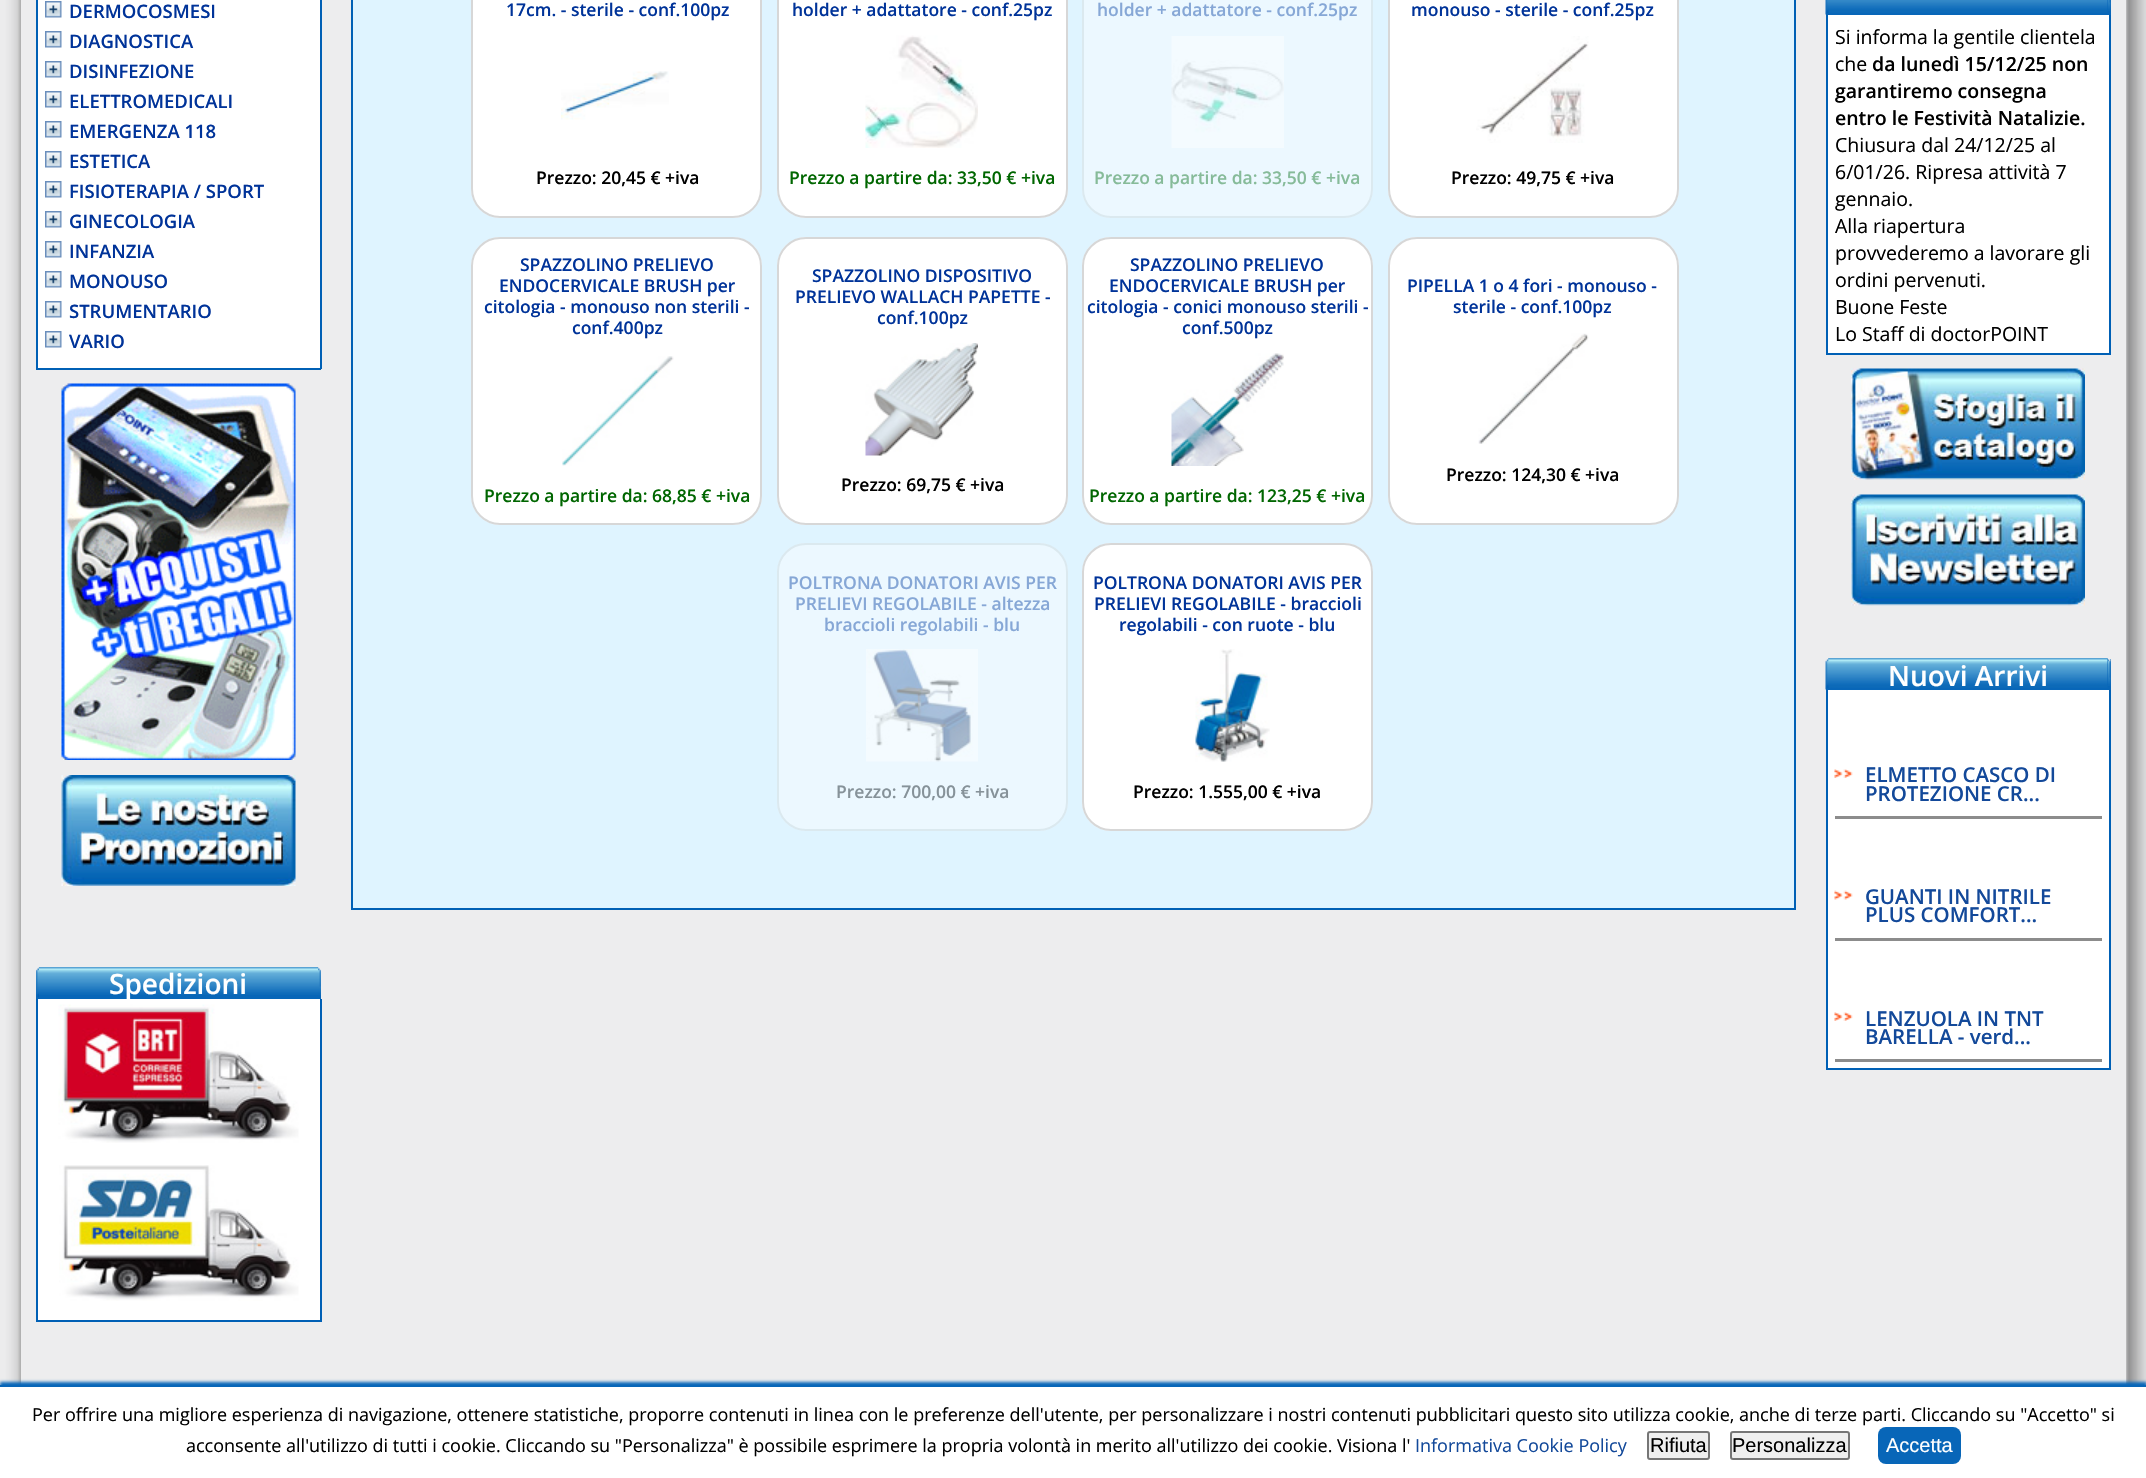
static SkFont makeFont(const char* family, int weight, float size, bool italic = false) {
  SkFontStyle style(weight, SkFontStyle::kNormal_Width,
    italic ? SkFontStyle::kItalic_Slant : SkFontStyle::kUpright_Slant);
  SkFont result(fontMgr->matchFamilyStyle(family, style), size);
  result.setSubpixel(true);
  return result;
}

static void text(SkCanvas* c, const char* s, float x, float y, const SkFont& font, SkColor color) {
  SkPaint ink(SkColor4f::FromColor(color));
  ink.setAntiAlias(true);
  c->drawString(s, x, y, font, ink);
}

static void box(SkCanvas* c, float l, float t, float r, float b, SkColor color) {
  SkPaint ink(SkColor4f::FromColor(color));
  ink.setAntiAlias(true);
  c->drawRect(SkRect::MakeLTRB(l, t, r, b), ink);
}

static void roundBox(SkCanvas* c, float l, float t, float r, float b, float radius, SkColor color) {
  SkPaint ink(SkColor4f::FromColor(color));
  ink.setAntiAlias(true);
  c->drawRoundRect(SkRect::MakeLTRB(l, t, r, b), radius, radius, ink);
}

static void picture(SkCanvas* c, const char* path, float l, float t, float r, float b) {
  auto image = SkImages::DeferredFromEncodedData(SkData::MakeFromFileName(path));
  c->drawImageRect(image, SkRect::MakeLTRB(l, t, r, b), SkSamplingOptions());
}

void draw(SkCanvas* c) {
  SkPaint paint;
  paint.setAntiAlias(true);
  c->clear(0xffffffff);
  picture(c, "img_01.png", 0, 0, 21, 1385);
  picture(c, "img_02.png", 2126, 0, 2146, 1385);
  box(c, 21, 0, 2126, 1385, 0xffededee);
  box(c, 38, 0, 320, 362, 0xffffffff);
  box(c, 320, 0, 322, 362, 0xff0060b5);
  box(c, 36, 0, 38, 362, 0xff0060b5);
  picture(c, "img_03.png", 45, 1, 62, 18);
  SkFont face1 = makeFont("Open Sans", 600, 18.5f);
  text(c, "DERMOCOSMESI", 69, 18, face1, 0xff003399);
  picture(c, "img_03.png", 45, 31, 62, 48);
  text(c, "DIAGNOSTICA", 69, 48, face1, 0xff003399);
  picture(c, "img_03.png", 45, 61, 62, 78);
  text(c, "DISINFEZIONE", 69, 78, face1, 0xff003399);
  picture(c, "img_03.png", 45, 91, 62, 108);
  text(c, "ELETTROMEDICALI", 69, 108, face1, 0xff003399);
  picture(c, "img_03.png", 45, 121, 62, 138);
  text(c, "EMERGENZA 118", 69, 138, face1, 0xff003399);
  picture(c, "img_03.png", 45, 151, 62, 168);
  text(c, "ESTETICA", 69, 168, face1, 0xff003399);
  picture(c, "img_03.png", 45, 181, 62, 198);
  text(c, "FISIOTERAPIA / SPORT", 69, 198, face1, 0xff003399);
  picture(c, "img_03.png", 45, 211, 62, 228);
  text(c, "GINECOLOGIA", 69, 228, face1, 0xff003399);
  picture(c, "img_03.png", 45, 241, 62, 258);
  text(c, "INFANZIA", 69, 258, face1, 0xff003399);
  picture(c, "img_03.png", 45, 271, 62, 288);
  text(c, "MONOUSO", 69, 288, face1, 0xff003399);
  picture(c, "img_03.png", 45, 301, 62, 318);
  text(c, "STRUMENTARIO", 69, 318, face1, 0xff003399);
  picture(c, "img_03.png", 45, 331, 62, 348);
  text(c, "VARIO", 69, 348, face1, 0xff003399);
  box(c, 36, 362, 321, 368, 0xffffffff);
  box(c, 320, 362, 322, 369, 0xff0060b5);
  box(c, 36, 368, 321, 370, 0xff0060b5);
  box(c, 36, 362, 38, 369, 0xff0060b5);
  picture(c, "img_04.png", 61, 383, 296, 760);
  picture(c, "img_05.png", 61, 775, 296, 886);
  box(c, 36, 997, 39, 999, 0xff0866b8);
  picture(c, "img_06.png", 36, 967, 39, 997);
  box(c, 39, 995, 321, 999, 0xff0866b8);
  picture(c, "img_07.png", 318, 967, 321, 995);
  picture(c, "img_08.png", 39, 967, 318, 995);
  box(c, 38, 999, 320, 1314, 0xffffffff);
  SkFont face2 = makeFont("Open Sans", 600, 28);
  text(c, "Spedizioni", 109, 994, face2, 0xffffffff);
  picture(c, "img_09.png", 58, 1004, 299, 1143);
  box(c, 320, 999, 322, 1314, 0xff0060b5);
  box(c, 36, 999, 38, 1314, 0xff0060b5);
  picture(c, "img_10.png", 59, 1165, 299, 1301);
  box(c, 36, 1314, 321, 1320, 0xffffffff);
  box(c, 320, 1314, 322, 1322, 0xff0060b5);
  box(c, 36, 1320, 321, 1322, 0xff0060b5);
  box(c, 36, 1314, 38, 1322, 0xff0060b5);
  box(c, 353, 0, 1794, 908, 0xffdff4ff);
  box(c, 1794, 0, 1796, 909, 0xff0060b5);
  box(c, 351, 0, 353, 893, 0xff0060b5);
  roundBox(c, 471, -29, 762, 218, 29, 0xffffffff);
  paint.setStyle(SkPaint::kStroke_Style);
  paint.setStrokeWidth(2);
  paint.setColor(0xc9cccccc);
  c->drawRoundRect(SkRect::MakeLTRB(472, -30, 761, 217), 28, 28, paint);
  SkFont face3 = makeFont("Open Sans", 600, 17.5f);
  text(c, "17cm. - sterile - conf.100pz", 506, 16, face3, 0xff003399);
  picture(c, "img_11.png", 561, 71, 669, 120);
  text(c, "Prezzo: 20,45 € +iva", 536, 184, face3, 0xff000000);
  roundBox(c, 777, -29, 1068, 218, 29, 0xffffffff);
  c->drawRoundRect(SkRect::MakeLTRB(778, -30, 1067, 217), 28, 28, paint);
  text(c, "holder + adattatore - conf.25pz", 792, 16, face3, 0xff003399);
  picture(c, "img_12.png", 865, 35, 978, 148);
  text(c, "Prezzo a partire da: 33,50 € +iva", 789, 184, face3, 0xff006600);
  roundBox(c, 1082, -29, 1373, 218, 29, 0xffecf8ff);
  paint.setColor(0xc9d7e4eb);
  c->drawRoundRect(SkRect::MakeLTRB(1083, -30, 1372, 217), 28, 28, paint);
  text(c, "holder + adattatore - conf.25pz", 1097, 16, face3, 0xff86a7d6);
  picture(c, "img_13.png", 1171, 36, 1284, 148);
  text(c, "Prezzo a partire da: 33,50 € +iva", 1094, 184, face3, 0xff86bb99);
  roundBox(c, 1388, -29, 1679, 218, 29, 0xffffffff);
  paint.setColor(0xc9cccccc);
  c->drawRoundRect(SkRect::MakeLTRB(1389, -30, 1678, 217), 28, 28, paint);
  text(c, "monouso - sterile - conf.25pz", 1411, 16, face3, 0xff003399);
  picture(c, "img_14.png", 1476, 36, 1589, 143);
  text(c, "Prezzo: 49,75 € +iva", 1451, 184, face3, 0xff000000);
  roundBox(c, 471, 237, 762, 525, 29, 0xffffffff);
  c->drawRoundRect(SkRect::MakeLTRB(472, 238, 761, 524), 28, 28, paint);
  text(c, "SPAZZOLINO PRELIEVO", 520, 271, face3, 0xff003399);
  text(c, "ENDOCERVICALE BRUSH per", 499, 292, face3, 0xff003399);
  text(c, "citologia - monouso non sterili -", 484, 313, face3, 0xff003399);
  text(c, "conf.400pz", 572, 334, face3, 0xff003399);
  picture(c, "img_15.png", 562, 356, 674, 466);
  text(c, "Prezzo a partire da: 68,85 € +iva", 484, 502, face3, 0xff006600);
  roundBox(c, 777, 237, 1068, 525, 29, 0xffffffff);
  c->drawRoundRect(SkRect::MakeLTRB(778, 238, 1067, 524), 28, 28, paint);
  text(c, "SPAZZOLINO DISPOSITIVO", 812, 282, face3, 0xff003399);
  text(c, "PRELIEVO WALLACH PAPETTE -", 795, 303, face3, 0xff003399);
  text(c, "conf.100pz", 877, 324, face3, 0xff003399);
  picture(c, "img_16.png", 865, 343, 978, 456);
  text(c, "Prezzo: 69,75 € +iva", 841, 491, face3, 0xff000000);
  roundBox(c, 1082, 237, 1373, 525, 29, 0xffffffff);
  c->drawRoundRect(SkRect::MakeLTRB(1083, 238, 1372, 524), 28, 28, paint);
  text(c, "SPAZZOLINO PRELIEVO", 1130, 271, face3, 0xff003399);
  text(c, "ENDOCERVICALE BRUSH per", 1109, 292, face3, 0xff003399);
  text(c, "citologia - conici monouso sterili -", 1087, 313, face3, 0xff003399);
  text(c, "conf.500pz", 1182, 334, face3, 0xff003399);
  picture(c, "img_17.png", 1171, 353, 1284, 466);
  text(c, "Prezzo a partire da: 123,25 € +iva", 1089, 502, face3, 0xff006600);
  roundBox(c, 1388, 237, 1679, 525, 29, 0xffffffff);
  c->drawRoundRect(SkRect::MakeLTRB(1389, 238, 1678, 524), 28, 28, paint);
  text(c, "PIPELLA 1 o 4 fori - monouso -", 1407, 292, face3, 0xff003399);
  text(c, "sterile - conf.100pz", 1453, 313, face3, 0xff003399);
  picture(c, "img_18.png", 1478, 333, 1589, 444);
  text(c, "Prezzo: 124,30 € +iva", 1446, 481, face3, 0xff000000);
  roundBox(c, 777, 543, 1068, 831, 29, 0xffecf8ff);
  paint.setColor(0xc9d7e4eb);
  c->drawRoundRect(SkRect::MakeLTRB(778, 544, 1067, 830), 28, 28, paint);
  text(c, "POLTRONA DONATORI AVIS PER", 788, 589, face3, 0xff86a7d6);
  text(c, "PRELIEVI REGOLABILE - altezza", 795, 610, face3, 0xff86a7d6);
  text(c, "braccioli regolabili - blu", 824, 631, face3, 0xff86a7d6);
  picture(c, "img_19.png", 866, 649, 978, 762);
  text(c, "Prezzo: 700,00 € +iva", 836, 798, face3, 0xff869299);
  roundBox(c, 1082, 543, 1373, 831, 29, 0xffffffff);
  paint.setColor(0xc9cccccc);
  c->drawRoundRect(SkRect::MakeLTRB(1083, 544, 1372, 830), 28, 28, paint);
  text(c, "POLTRONA DONATORI AVIS PER", 1093, 589, face3, 0xff003399);
  text(c, "PRELIEVI REGOLABILE - braccioli", 1094, 610, face3, 0xff003399);
  text(c, "regolabili - con ruote - blu", 1119, 631, face3, 0xff003399);
  picture(c, "img_20.png", 1195, 649, 1270, 762);
  text(c, "Prezzo: 1.555,00 € +iva", 1133, 798, face3, 0xff000000);
  box(c, 351, 908, 1796, 910, 0xff0060b5);
  box(c, 351, 893, 353, 909, 0xff0060b5);
  box(c, 1826, 14, 1829, 15, 0xff0866b8);
  picture(c, "img_21.png", 1825, 0, 1829, 15);
  box(c, 1829, 0, 2111, 15, 0xff0866b8);
  picture(c, "img_22.png", 2108, 0, 2111, 11);
  picture(c, "img_23.png", 1828, 0, 2108, 13);
  box(c, 1828, 15, 2109, 347, 0xffffffff);
  box(c, 2109, 15, 2111, 347, 0xff0060b5);
  box(c, 1826, 15, 1828, 347, 0xff0060b5);
  SkFont face4 = makeFont("Open Sans", 400, 19.5f);
  text(c, "Si informa la gentile clientela", 1835, 44, face4, 0xff000000);
  text(c, "che", 1835, 71, face4, 0xff000000);
  SkFont face5 = makeFont("Open Sans", 600, 19.5f);
  text(c, "da lunedì 15/12/25 non", 1872, 71, face5, 0xff000000);
  text(c, "garantiremo consegna", 1835, 98, face5, 0xff000000);
  text(c, "entro le Festività Natalizie.", 1835, 125, face5, 0xff000000);
  text(c, "Chiusura dal 24/12/25 al", 1835, 152, face4, 0xff000000);
  text(c, "6/01/26. Ripresa attività 7", 1835, 179, face4, 0xff000000);
  text(c, "gennaio.", 1835, 206, face4, 0xff000000);
  text(c, "Alla riapertura", 1835, 233, face4, 0xff000000);
  text(c, "provvederemo a lavorare gli", 1835, 260, face4, 0xff000000);
  text(c, "ordini pervenuti.", 1835, 287, face4, 0xff000000);
  text(c, "Buone Feste", 1835, 314, face4, 0xff000000);
  text(c, "Lo Staff di doctorPOINT", 1835, 341, face4, 0xff000000);
  box(c, 1826, 347, 2111, 353, 0xffffffff);
  box(c, 2109, 347, 2111, 354, 0xff0060b5);
  box(c, 1826, 353, 2111, 355, 0xff0060b5);
  box(c, 1826, 347, 1828, 354, 0xff0060b5);
  picture(c, "img_24.png", 1851, 368, 2085, 480);
  picture(c, "img_25.png", 1851, 494, 2085, 606);
  box(c, 1826, 689, 1829, 690, 0xff0866b8);
  picture(c, "img_26.png", 1825, 658, 1829, 690);
  box(c, 2108, 659, 2111, 690, 0xff0866b8);
  picture(c, "img_27.png", 2107, 658, 2111, 686);
  box(c, 1829, 659, 2108, 690, 0xff0866b8);
  picture(c, "img_28.png", 1828, 658, 2108, 688);
  text(c, "Nuovi Arrivi", 1888, 686, face2, 0xffffffff);
  box(c, 1828, 690, 2109, 1062, 0xffffffff);
  box(c, 2109, 690, 2111, 1062, 0xff0060b5);
  box(c, 1826, 690, 1828, 1062, 0xff0060b5);
  box(c, 1835, 816, 2102, 819, 0xff8c8c8c);
  picture(c, "img_29.png", 1834, 769, 1853, 778);
  SkFont face6 = makeFont("Open Sans", 600, 20.5f);
  text(c, "ELMETTO CASCO DI", 1865, 782, face6, 0xff13499a);
  text(c, "PROTEZIONE CR...", 1865, 801, face6, 0xff13499a);
  box(c, 1835, 938, 2102, 941, 0xff8c8c8c);
  picture(c, "img_30.png", 1834, 890, 1853, 900);
  text(c, "GUANTI IN NITRILE", 1865, 904, face6, 0xff13499a);
  text(c, "PLUS COMFORT...", 1865, 922, face6, 0xff13499a);
  box(c, 1835, 1059, 2102, 1062, 0xff8c8c8c);
  picture(c, "img_29.png", 1834, 1012, 1853, 1021);
  text(c, "LENZUOLA IN TNT", 1865, 1026, face6, 0xff13499a);
  text(c, "BARELLA - verd...", 1865, 1044, face6, 0xff13499a);
  box(c, 1826, 1062, 2111, 1068, 0xffffffff);
  box(c, 2109, 1062, 2111, 1070, 0xff0060b5);
  box(c, 1826, 1068, 2111, 1070, 0xff0060b5);
  box(c, 1826, 1062, 1828, 1070, 0xff0060b5);
  paint.setStyle(SkPaint::kFill_Style);
  paint.setColor(0xff0866b8);
  paint.setMaskFilter(SkMaskFilter::MakeBlur(kNormal_SkBlurStyle, 1.5f));
  c->drawRect(SkRect::MakeLTRB(0, 1382, 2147, 1476), paint);
  paint.setMaskFilter(nullptr);
  box(c, 0, 1387, 2146, 1478, 0xffffffff);
  box(c, 0, 1385, 2146, 1387, 0xff0866b8);
  SkFont face7 = makeFont("Open Sans", 400, 18);
  text(c, "Per offrire una migliore esperienza di navigazione, ottenere statistiche, proporre contenuti in linea con le preferenze dell'utente, per personalizzare i nostri contenuti pubblicitari questo sito utilizza cookie, anche di terze parti. Cliccando su \"Accetto\" si", 32, 1421, face7, 0xff000000);
  text(c, "acconsente all'utilizzo di tutti i cookie. Cliccando su \"Personalizza\" è possibile esprimere la propria volontà in merito all'utilizzo dei cookie. Visiona l'", 186, 1452, face7, 0xff000000);
  text(c, "Informativa Cookie Policy", 1415, 1452, face7, 0xff13499a);
  paint.setColor(0xffefefef);
  c->drawRoundRect(SkRect::MakeLTRB(1648, 1432, 1709, 1459), 2, 2, paint);
  paint.setStyle(SkPaint::kStroke_Style);
  paint.setColor(0xff767676);
  c->drawRoundRect(SkRect::MakeLTRB(1648, 1432, 1709, 1459), 2, 2, paint);
  SkFont face8 = makeFont("Liberation Sans", 400, 20);
  text(c, "Rifiuta", 1650, 1452, face8, 0xff000000);
  paint.setStyle(SkPaint::kFill_Style);
  paint.setColor(0xffefefef);
  c->drawRoundRect(SkRect::MakeLTRB(1731, 1432, 1849, 1459), 2, 2, paint);
  paint.setStyle(SkPaint::kStroke_Style);
  paint.setColor(0xff767676);
  c->drawRoundRect(SkRect::MakeLTRB(1731, 1432, 1849, 1459), 2, 2, paint);
  text(c, "Personalizza", 1732, 1452, face8, 0xff000000);
  roundBox(c, 1878, 1427, 1961, 1464, 8, 0xff0866b8);
  text(c, "Accetta", 1886, 1452, face8, 0xffffffff);
}
